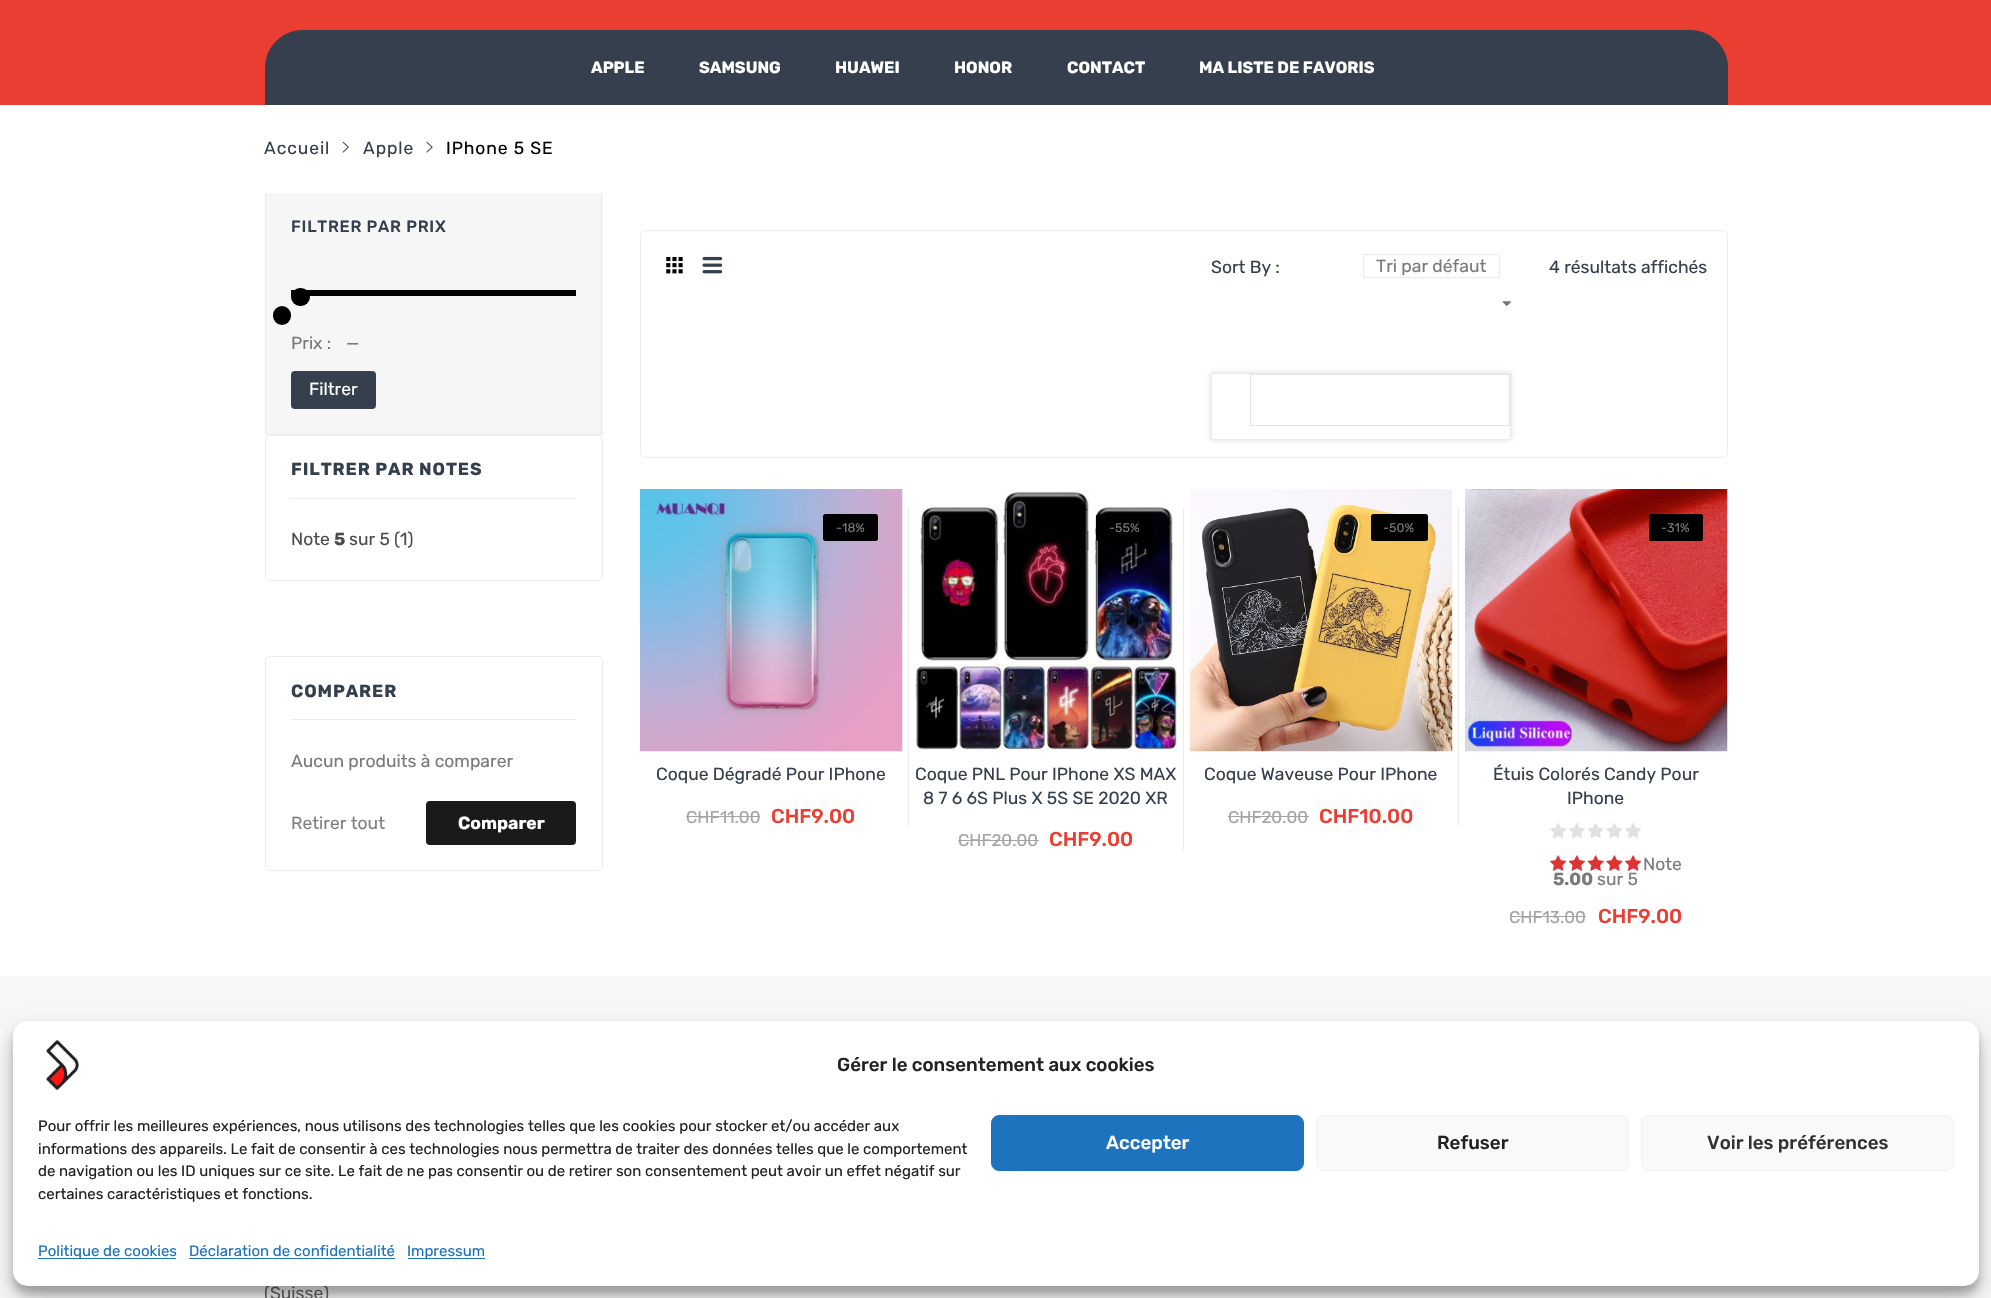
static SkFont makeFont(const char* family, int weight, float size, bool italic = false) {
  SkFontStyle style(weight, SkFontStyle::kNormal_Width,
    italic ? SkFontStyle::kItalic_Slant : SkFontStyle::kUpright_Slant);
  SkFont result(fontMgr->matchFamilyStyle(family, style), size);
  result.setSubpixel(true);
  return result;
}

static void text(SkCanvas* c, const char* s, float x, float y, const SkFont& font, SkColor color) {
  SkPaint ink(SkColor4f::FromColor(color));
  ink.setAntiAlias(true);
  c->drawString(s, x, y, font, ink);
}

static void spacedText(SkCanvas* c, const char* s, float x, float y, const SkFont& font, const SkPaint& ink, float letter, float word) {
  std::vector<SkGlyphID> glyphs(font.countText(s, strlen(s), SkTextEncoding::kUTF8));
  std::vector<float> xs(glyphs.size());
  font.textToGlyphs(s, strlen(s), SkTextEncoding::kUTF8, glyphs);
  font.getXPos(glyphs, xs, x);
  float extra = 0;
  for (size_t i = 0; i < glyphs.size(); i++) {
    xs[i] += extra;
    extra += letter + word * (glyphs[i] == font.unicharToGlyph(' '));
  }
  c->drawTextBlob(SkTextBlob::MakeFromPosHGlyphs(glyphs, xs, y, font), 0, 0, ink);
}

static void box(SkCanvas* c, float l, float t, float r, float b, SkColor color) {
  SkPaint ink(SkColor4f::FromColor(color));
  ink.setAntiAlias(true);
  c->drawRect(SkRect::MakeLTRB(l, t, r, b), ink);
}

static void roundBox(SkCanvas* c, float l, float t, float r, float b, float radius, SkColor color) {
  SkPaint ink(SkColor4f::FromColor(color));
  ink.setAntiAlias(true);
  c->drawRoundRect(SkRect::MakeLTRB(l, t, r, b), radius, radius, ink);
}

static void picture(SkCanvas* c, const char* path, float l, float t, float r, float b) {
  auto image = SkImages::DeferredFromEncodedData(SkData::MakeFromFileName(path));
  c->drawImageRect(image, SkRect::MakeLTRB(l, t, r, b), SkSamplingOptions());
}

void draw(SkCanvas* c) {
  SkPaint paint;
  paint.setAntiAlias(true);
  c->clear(0xffffffff);
  box(c, 0, 0, 1991, 105, 0xffeb3e32);
  paint.setColor(0xff363f4d);
  c->drawPath(SkPathBuilder().moveTo(302.5f, 30).lineTo(1690.5f, 30).cubicTo(1711, 30, 1728, 47, 1728, 67.5f).lineTo(1728, 105).lineTo(265, 105).lineTo(265, 67.5f).cubicTo(265, 47, 282, 30, 302.5f, 30).close().detach(), paint);
  SkFont face1 = makeFont("Rubik", 700, 16.25f);
  text(c, "APPLE", 591, 73, face1, 0xffffffff);
  text(c, "SAMSUNG", 699, 73, face1, 0xffffffff);
  text(c, "HUAWEI", 835, 73, face1, 0xffffffff);
  text(c, "HONOR", 954, 73, face1, 0xffffffff);
  text(c, "CONTACT", 1067, 73, face1, 0xffffffff);
  text(c, "MA LISTE DE FAVORIS", 1199, 73, face1, 0xffffffff);
  SkFont face2 = makeFont("Rubik", 400, 17.5f);
  spacedText(c, "Accueil", 264, 154, face2, paint, 0.9f, 0);
  picture(c, "img_01.png", 342, 141, 349, 153);
  spacedText(c, "Apple", 363, 154, face2, paint, 0.9f, 0);
  picture(c, "img_02.png", 426, 141, 433, 153);
  paint.setColor(0xff000000);
  spacedText(c, "IPhone 5 SE", 446, 154, face2, paint, 0.9f, 0);
  box(c, 266, 193, 603, 434, 0xfff6f6f6);
  box(c, 601, 193, 602, 435, 0xffebebeb);
  box(c, 265, 434, 603, 435, 0xffebebeb);
  box(c, 265, 193, 266, 435, 0xffebebeb);
  SkFont face3 = makeFont("Rubik", 500, 16.25f);
  paint.setColor(0xff363f4d);
  spacedText(c, "FILTRER PAR PRIX", 291, 232, face3, paint, 0.75f, 0);
  box(c, 291, 290, 576, 296, 0xff000000);
  roundBox(c, 291, 288, 310, 306, 9, 0xff000000);
  roundBox(c, 273, 306, 291, 325, 9, 0xff000000);
  text(c, "Prix :", 291, 349, face2, 0xff7a7a7a);
  text(c, "—", 346, 349, face2, 0xff7a7a7a);
  roundBox(c, 291, 371, 376, 409, 4, 0xff363f4d);
  text(c, "Filtrer", 309, 395, face2, 0xffffffff);
  paint.setStyle(SkPaint::kStroke_Style);
  paint.setStrokeWidth(1);
  paint.setColor(0xffebebeb);
  c->drawRoundRect(SkRect::MakeLTRB(265.5f, 435.5f, 602.5f, 580.5f), 4.5f, 4.5f, paint);
  box(c, 291, 498, 576, 499, 0xffebebeb);
  SkFont face4 = makeFont("Rubik", 700, 17.5f);
  paint.setStyle(SkPaint::kFill_Style);
  paint.setColor(0xff363f4d);
  spacedText(c, "FILTRER PAR NOTES", 291, 475, face4, paint, 0.9f, 0);
  text(c, "Note", 291, 545, face2, 0xff4c4c4c);
  text(c, "5", 334, 545, face4, 0xff4c4c4c);
  text(c, "sur 5 (1)", 349, 545, face2, 0xff4c4c4c);
  paint.setStyle(SkPaint::kStroke_Style);
  paint.setColor(0xffebebeb);
  c->drawRoundRect(SkRect::MakeLTRB(265.5f, 656.5f, 602.5f, 870.5f), 4.5f, 4.5f, paint);
  box(c, 291, 719, 576, 720, 0xffebebeb);
  paint.setStyle(SkPaint::kFill_Style);
  paint.setColor(0xff363f4d);
  spacedText(c, "COMPARER", 291, 697, face4, paint, 0.9f, 0);
  text(c, "Aucun produits à comparer", 291, 767, face2, 0xff7a7a7a);
  text(c, "Retirer tout", 291, 829, face2, 0xff808080);
  roundBox(c, 426, 801, 576, 845, 4, 0xff1a1a1a);
  text(c, "Comparer", 458, 829, face4, 0xffffffff);
  paint.setStyle(SkPaint::kStroke_Style);
  paint.setColor(0xffebebeb);
  c->drawRoundRect(SkRect::MakeLTRB(640.5f, 230.5f, 1727.5f, 457.5f), 4.5f, 4.5f, paint);
  picture(c, "img_03.png", 666, 256, 683, 274);
  picture(c, "img_04.png", 702, 256, 723, 274);
  text(c, "Sort By :", 1211, 273, face2, 0xff363f4d);
  c->drawRect(SkRect::MakeLTRB(1363.5f, 254.5f, 1499.5f, 277.5f), paint);
  text(c, "Tri par défaut", 1376, 272, face2, 0xff7a7a7a);
  picture(c, "img_05.png", 1502, 301, 1511, 306);
  c->save();
  c->clipPath(SkPathBuilder(SkPathFillType::kEvenOdd).moveTo(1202, 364).lineTo(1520, 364).lineTo(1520, 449).lineTo(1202, 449).close().moveTo(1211, 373).lineTo(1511, 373).lineTo(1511, 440).lineTo(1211, 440).close().detach(), true);
  paint.setStyle(SkPaint::kFill_Style);
  paint.setColor(0x24000000);
  paint.setMaskFilter(SkMaskFilter::MakeBlur(kNormal_SkBlurStyle, 2.5f));
  c->drawRect(SkRect::MakeLTRB(1211, 373, 1511, 440), paint);
  paint.setMaskFilter(nullptr);
  c->restore();
  paint.setStyle(SkPaint::kStroke_Style);
  paint.setColor(0xffebebeb);
  c->drawRect(SkRect::MakeLTRB(1211.5f, 373.5f, 1510.5f, 439.5f), paint);
  paint.setColor(0xffe5e5e5);
  c->drawRect(SkRect::MakeLTRB(1250.5f, 374.5f, 1509.5f, 425.5f), paint);
  text(c, "4 résultats affichés", 1549, 273, face2, 0xff363f4d);
  picture(c, "img_06.png", 640, 489, 903, 752);
  roundBox(c, 823, 514, 878, 541, 2.5f, 0xff000000);
  SkFont face5 = makeFont("Rubik", 400, 12.5f);
  text(c, "-18%", 836, 532, face5, 0xff7a7a7a);
  box(c, 908, 508, 909, 826, 0xffebebeb);
  text(c, "Coque Dégradé Pour IPhone", 656, 780, face2, 0xff363f4d);
  SkFont face6 = makeFont("Rubik", 400, 17);
  text(c, "CHF", 686, 823, face6, 0xffa4a4a4);
  box(c, 686, 816, 720, 817, 0xffa4a4a4);
  text(c, "11.00", 720, 823, face6, 0xffa4a4a4);
  box(c, 720, 816, 760, 817, 0xffa4a4a4);
  SkFont face7 = makeFont("Rubik", 500, 20);
  text(c, "CHF9.00", 771, 823, face7, 0xffeb3e32);
  picture(c, "img_07.png", 915, 490, 1178, 752);
  roundBox(c, 1096, 514, 1153, 541, 2.5f, 0xff000000);
  text(c, "-55%", 1109, 532, face5, 0xff7a7a7a);
  box(c, 1183, 508, 1184, 850, 0xffebebeb);
  text(c, "Coque PNL Pour IPhone XS MAX", 915, 780, face2, 0xff363f4d);
  text(c, "8 7 6 6S Plus X 5S SE 2020 XR", 923, 804, face2, 0xff363f4d);
  text(c, "CHF20.00", 958, 846, face6, 0xffa4a4a4);
  box(c, 958, 840, 1039, 841, 0xffa4a4a4);
  text(c, "CHF9.00", 1049, 846, face7, 0xffeb3e32);
  picture(c, "img_08.png", 1190, 489, 1453, 752);
  roundBox(c, 1371, 514, 1428, 541, 2.5f, 0xff000000);
  text(c, "-50%", 1383, 532, face5, 0xff7a7a7a);
  box(c, 1458, 508, 1459, 826, 0xffebebeb);
  text(c, "Coque Waveuse Pour IPhone", 1204, 780, face2, 0xff363f4d);
  text(c, "CHF20.00", 1228, 823, face6, 0xffa4a4a4);
  box(c, 1228, 816, 1309, 817, 0xffa4a4a4);
  text(c, "CHF10.00", 1319, 823, face7, 0xffeb3e32);
  picture(c, "img_09.png", 1465, 489, 1728, 752);
  roundBox(c, 1649, 514, 1703, 541, 2.5f, 0xff000000);
  text(c, "-31%", 1661, 532, face5, 0xff7a7a7a);
  text(c, "Étuis Colorés Candy Pour", 1493, 780, face2, 0xff363f4d);
  text(c, "IPhone", 1567, 804, face2, 0xff363f4d);
  picture(c, "img_10.png", 1550, 823, 1641, 839);
  picture(c, "img_11.png", 1550, 855, 1642, 871);
  text(c, "Note", 1643, 870, face2, 0xff7a7a7a);
  text(c, "5.00", 1553, 885, face4, 0xff7a7a7a);
  text(c, "sur 5", 1597, 885, face2, 0xff7a7a7a);
  text(c, "CHF13.00", 1509, 923, face6, 0xffa4a4a4);
  box(c, 1510, 916, 1586, 917, 0xffa4a4a4);
  text(c, "CHF9.00", 1598, 923, face7, 0xffeb3e32);
  box(c, 0, 976, 1991, 1298, 0xfff7f7f7);
  text(c, "(Suisse)", 264, 1299, face2, 0xff666666);
  paint.setStyle(SkPaint::kFill_Style);
  paint.setColor(0x3b000000);
  paint.setMaskFilter(SkMaskFilter::MakeBlur(kNormal_SkBlurStyle, 4));
  c->drawRoundRect(SkRect::MakeLTRB(13, 1029, 1979, 1294), 15, 15, paint);
  paint.setMaskFilter(nullptr);
  paint.setColor(0x30000000);
  paint.setMaskFilter(SkMaskFilter::MakeBlur(kNormal_SkBlurStyle, 12.5f));
  c->drawRoundRect(SkRect::MakeLTRB(13, 1034, 1979, 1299), 15, 15, paint);
  paint.setMaskFilter(nullptr);
  roundBox(c, 13, 1021, 1979, 1286, 15, 0xffffffff);
  picture(c, "img_12.png", 46, 1040, 79, 1090);
  SkFont face8 = makeFont("Rubik", 500, 18.75f);
  text(c, "Gérer le consentement aux cookies", 837, 1071, face8, 0xff222222);
  SkFont face9 = makeFont("Rubik", 400, 15);
  text(c, "Pour offrir les meilleures expériences, nous utilisons des technologies telles que les cookies pour stocker et/ou accéder aux", 38, 1131, face9, 0xff222222);
  text(c, "informations des appareils. Le fait de consentir à ces technologies nous permettra de traiter des données telles que le comportement", 38, 1154, face9, 0xff222222);
  text(c, "de navigation ou les ID uniques sur ce site. Le fait de ne pas consentir ou de retirer son consentement peut avoir un effet négatif sur", 38, 1176, face9, 0xff222222);
  text(c, "certaines caractéristiques et fonctions.", 38, 1199, face9, 0xff222222);
  paint.setColor(0xff1e73be);
  c->drawRoundRect(SkRect::MakeLTRB(991.5f, 1115.5f, 1303.5f, 1170.5f), 7.5f, 7.5f, paint);
  paint.setStyle(SkPaint::kStroke_Style);
  c->drawRoundRect(SkRect::MakeLTRB(991.5f, 1115.5f, 1303.5f, 1170.5f), 7.5f, 7.5f, paint);
  text(c, "Accepter", 1106, 1149, face8, 0xffffffff);
  paint.setStyle(SkPaint::kFill_Style);
  paint.setColor(0xfff9f9f9);
  c->drawRoundRect(SkRect::MakeLTRB(1316.5f, 1115.5f, 1628.5f, 1170.5f), 7.5f, 7.5f, paint);
  paint.setStyle(SkPaint::kStroke_Style);
  paint.setColor(0xfff2f2f2);
  c->drawRoundRect(SkRect::MakeLTRB(1316.5f, 1115.5f, 1628.5f, 1170.5f), 7.5f, 7.5f, paint);
  text(c, "Refuser", 1437, 1149, face8, 0xff222222);
  paint.setStyle(SkPaint::kFill_Style);
  paint.setColor(0xfff9f9f9);
  c->drawRoundRect(SkRect::MakeLTRB(1641.5f, 1115.5f, 1953.5f, 1170.5f), 7.5f, 7.5f, paint);
  paint.setStyle(SkPaint::kStroke_Style);
  paint.setColor(0xfff2f2f2);
  c->drawRoundRect(SkRect::MakeLTRB(1641.5f, 1115.5f, 1953.5f, 1170.5f), 7.5f, 7.5f, paint);
  text(c, "Voir les préférences", 1707, 1149, face8, 0xff333333);
  box(c, 38, 1258, 176, 1259, 0xff1e73be);
  text(c, "Politique de cookies", 38, 1256, face9, 0xff1e73be);
  text(c, "Déclaration de confidentialité", 189, 1256, face9, 0xff1e73be);
  box(c, 189, 1258, 395, 1259, 0xff1e73be);
  box(c, 408, 1258, 485, 1259, 0xff1e73be);
  text(c, "Impressum", 407, 1256, face9, 0xff1e73be);
}
